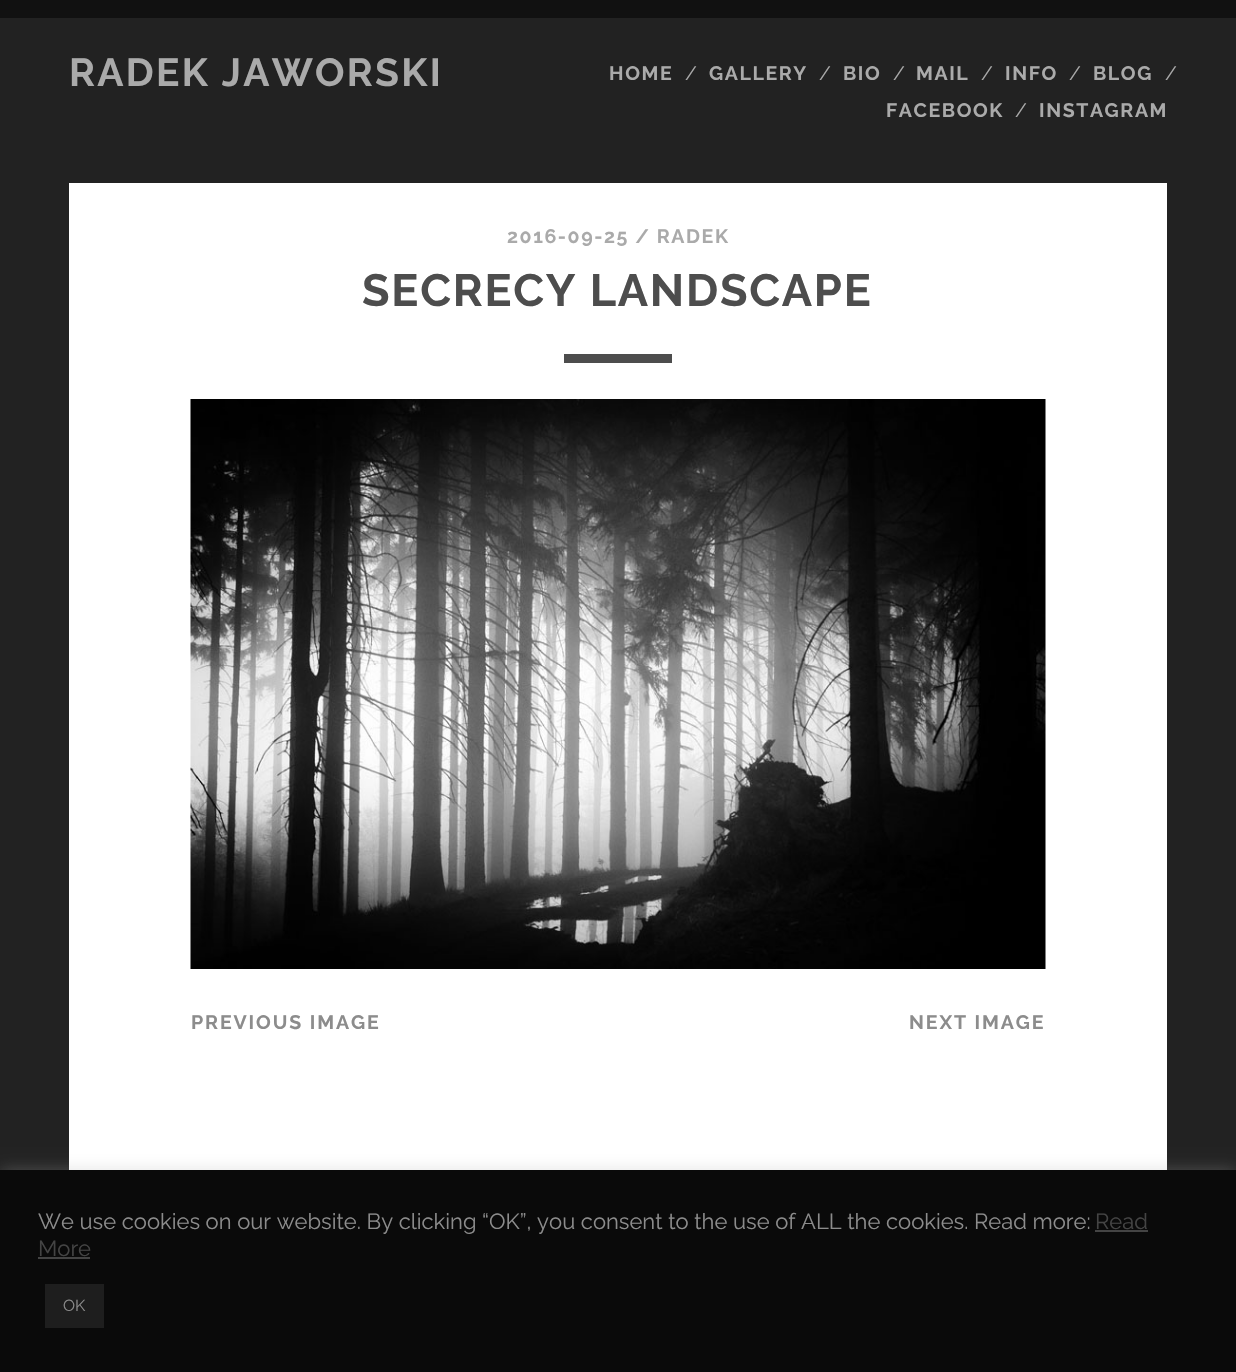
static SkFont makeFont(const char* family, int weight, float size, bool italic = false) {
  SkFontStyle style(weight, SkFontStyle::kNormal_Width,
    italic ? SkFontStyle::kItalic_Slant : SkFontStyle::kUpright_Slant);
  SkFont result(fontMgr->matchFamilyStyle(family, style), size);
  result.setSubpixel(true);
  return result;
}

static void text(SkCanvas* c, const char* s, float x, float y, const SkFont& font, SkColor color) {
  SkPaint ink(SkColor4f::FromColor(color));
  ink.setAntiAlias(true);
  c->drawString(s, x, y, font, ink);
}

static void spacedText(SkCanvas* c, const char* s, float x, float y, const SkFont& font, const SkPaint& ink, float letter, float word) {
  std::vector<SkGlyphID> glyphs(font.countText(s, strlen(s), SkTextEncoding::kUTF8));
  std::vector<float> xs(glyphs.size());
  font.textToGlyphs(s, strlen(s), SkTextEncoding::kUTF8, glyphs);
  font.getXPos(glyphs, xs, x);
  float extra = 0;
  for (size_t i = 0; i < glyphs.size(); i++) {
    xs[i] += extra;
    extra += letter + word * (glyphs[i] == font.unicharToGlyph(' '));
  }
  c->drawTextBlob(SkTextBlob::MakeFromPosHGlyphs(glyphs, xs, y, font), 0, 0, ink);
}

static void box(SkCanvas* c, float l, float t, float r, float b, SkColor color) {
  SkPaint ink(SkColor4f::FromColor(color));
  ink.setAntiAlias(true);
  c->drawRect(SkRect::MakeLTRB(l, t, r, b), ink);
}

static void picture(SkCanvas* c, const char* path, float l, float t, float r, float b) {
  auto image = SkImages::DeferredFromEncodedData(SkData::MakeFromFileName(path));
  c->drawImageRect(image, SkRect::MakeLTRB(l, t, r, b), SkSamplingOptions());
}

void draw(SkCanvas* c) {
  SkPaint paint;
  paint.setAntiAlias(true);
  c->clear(0xff222222);
  box(c, 0, 0, 1236, 18, 0xff111111);
  SkFont face1 = makeFont("Raleway", 700, 39);
  paint.setColor(0xffaaaaaa);
  spacedText(c, "RADEK JAWORSKI", 69, 86, face1, paint, 2.3f, 0);
  SkFont face2 = makeFont("Raleway", 700, 19.5f);
  spacedText(c, "HOME", 609, 80, face2, paint, 1.6f, 0);
  SkFont face3 = makeFont("Raleway", 400, 19.5f);
  text(c, "/", 685, 80, face3, 0xffaaaaaa);
  spacedText(c, "GALLERY", 709, 80, face2, paint, 1.6f, 0);
  text(c, "/", 819, 80, face3, 0xffaaaaaa);
  spacedText(c, "BIO", 843, 80, face2, paint, 1.6f, 0);
  text(c, "/", 893, 80, face3, 0xffaaaaaa);
  spacedText(c, "MAIL", 916, 80, face2, paint, 1.6f, 0);
  text(c, "/", 981, 80, face3, 0xffaaaaaa);
  spacedText(c, "INFO", 1005, 80, face2, paint, 1.6f, 0);
  text(c, "/", 1069, 80, face3, 0xffaaaaaa);
  spacedText(c, "BLOG", 1093, 80, face2, paint, 1.6f, 0);
  text(c, "/", 1165, 80, face3, 0xffaaaaaa);
  spacedText(c, "FACEBOOK", 886, 117, face2, paint, 1.6f, 0);
  text(c, "/", 1015, 117, face3, 0xffaaaaaa);
  spacedText(c, "INSTAGRAM", 1039, 117, face2, paint, 1.6f, 0);
  box(c, 69, 183, 1167, 1170, 0xffffffff);
  spacedText(c, "2016-09-25 / RADEK", 507, 243, face2, paint, 1.6f, 0);
  SkFont face4 = makeFont("Raleway", 700, 45);
  paint.setColor(0xff4d4d4d);
  spacedText(c, "SECRECY LANDSCAPE", 362, 306, face4, paint, 1.75f, 0);
  box(c, 564, 354, 672, 363, 0xff4d4d4d);
  picture(c, "img_01.png", 190, 399, 1046, 969);
  paint.setColor(0xff8c8c8c);
  spacedText(c, "PREVIOUS IMAGE", 191, 1029, face2, paint, 1.9f, 0);
  spacedText(c, "NEXT IMAGE", 909, 1029, face2, paint, 1.9f, 0);
  paint.setColor(0x4dacabab);
  paint.setMaskFilter(SkMaskFilter::MakeBlur(kNormal_SkBlurStyle, 7.5f));
  c->drawRect(SkRect::MakeLTRB(0, 1169, 1236, 1371), paint);
  paint.setMaskFilter(nullptr);
  box(c, 0, 1170, 1236, 1372, 0xff0a0a0a);
  SkFont face5 = makeFont("Raleway", 400, 22);
  text(c, "We use cookies on our website. By clicking “OK”, you consent to the use of ALL the cookies. Read more:", 38, 1229, face5, 0xff8c8c8c);
  text(c, "Read", 1095, 1229, face5, 0xff444444);
  box(c, 1095, 1230, 1148, 1232, 0xff444444);
  text(c, "More", 38, 1256, face5, 0xff444444);
  box(c, 38, 1257, 90, 1259, 0xff444444);
  box(c, 45, 1284, 104, 1328, 0xff1e1e1e);
  SkFont face6 = makeFont("Raleway", 400, 16);
  text(c, "OK", 63, 1311, face6, 0xff8c8c8c);
}
